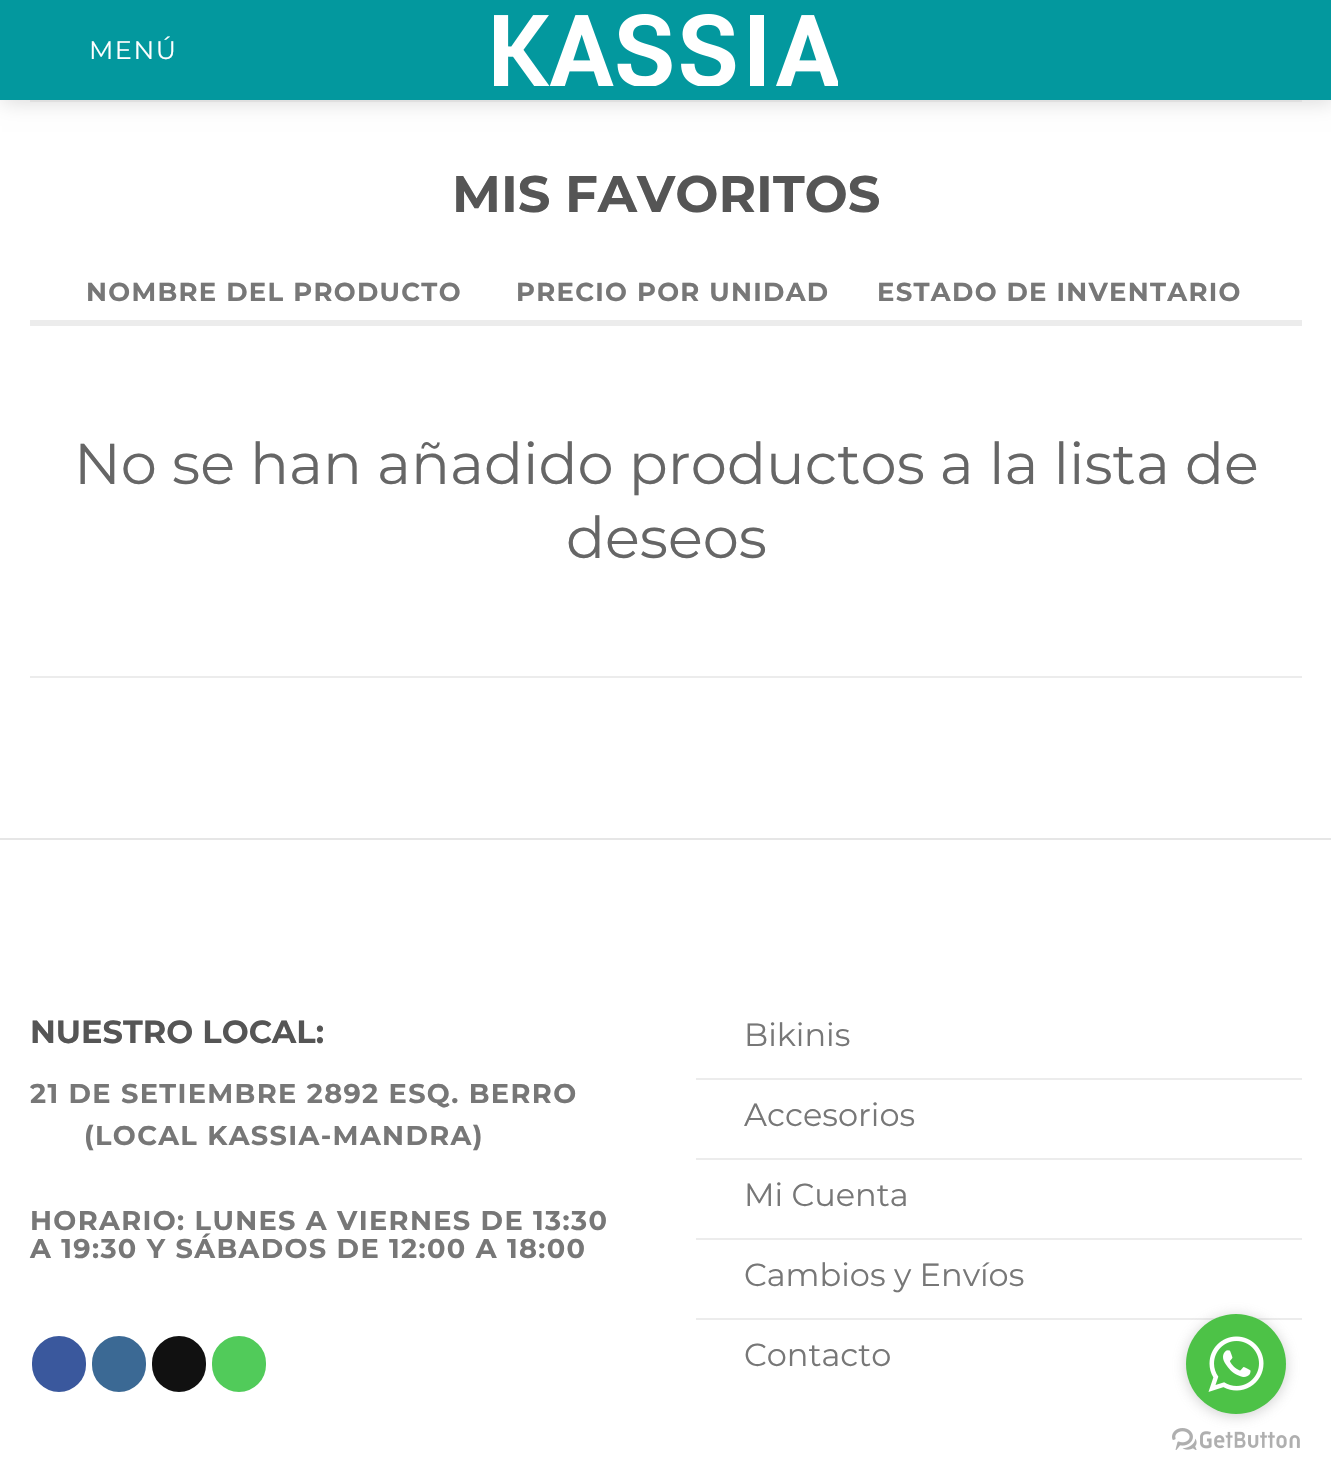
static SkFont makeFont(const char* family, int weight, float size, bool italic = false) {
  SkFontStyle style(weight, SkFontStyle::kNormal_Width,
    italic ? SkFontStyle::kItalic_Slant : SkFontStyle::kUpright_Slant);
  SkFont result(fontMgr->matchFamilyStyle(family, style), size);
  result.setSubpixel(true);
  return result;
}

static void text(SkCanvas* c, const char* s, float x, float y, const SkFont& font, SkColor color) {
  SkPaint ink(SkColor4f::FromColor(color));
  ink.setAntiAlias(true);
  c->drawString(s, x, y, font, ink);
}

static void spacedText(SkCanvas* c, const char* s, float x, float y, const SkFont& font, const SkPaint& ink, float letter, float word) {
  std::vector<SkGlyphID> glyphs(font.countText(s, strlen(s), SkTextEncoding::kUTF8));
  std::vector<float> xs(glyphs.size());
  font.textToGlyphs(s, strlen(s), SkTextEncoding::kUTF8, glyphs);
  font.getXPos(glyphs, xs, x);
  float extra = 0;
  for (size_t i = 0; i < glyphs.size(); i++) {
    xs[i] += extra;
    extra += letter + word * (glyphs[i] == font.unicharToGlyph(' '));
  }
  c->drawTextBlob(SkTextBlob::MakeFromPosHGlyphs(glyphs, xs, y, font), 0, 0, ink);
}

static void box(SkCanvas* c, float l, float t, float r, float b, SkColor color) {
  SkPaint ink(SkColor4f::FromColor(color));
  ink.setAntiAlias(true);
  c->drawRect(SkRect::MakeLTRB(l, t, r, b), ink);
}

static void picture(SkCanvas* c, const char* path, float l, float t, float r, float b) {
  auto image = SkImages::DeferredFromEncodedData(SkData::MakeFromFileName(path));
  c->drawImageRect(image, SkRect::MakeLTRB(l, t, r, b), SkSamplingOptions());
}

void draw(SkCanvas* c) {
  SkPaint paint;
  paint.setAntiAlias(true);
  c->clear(0xffffffff);
  paint.setColor(0x26000000);
  paint.setMaskFilter(SkMaskFilter::MakeBlur(kNormal_SkBlurStyle, 10));
  c->drawRect(SkRect::MakeLTRB(2, 2, 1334, 102), paint);
  paint.setMaskFilter(nullptr);
  box(c, 0, 0, 1331, 100, 0xff03989e);
  SkFont face1 = makeFont("Montserrat", 400, 25.5f);
  paint.setColor(0xffffffff);
  spacedText(c, "MENÚ", 89, 59, face1, paint, 1.5f, 0);
  picture(c, "img_01.png", 494, 14, 838, 86);
  box(c, 30, 100, 1302, 102, 0xffdfdfdf);
  SkFont face2 = makeFont("Montserrat", 700, 51.25f);
  text(c, "MIS FAVORITOS", 452, 212, face2, 0xff555555);
  SkFont face3 = makeFont("Montserrat", 700, 25.9f);
  paint.setColor(0xff777777);
  spacedText(c, "NOMBRE DEL PRODUCTO", 86, 301, face3, paint, 1.3f, 0);
  spacedText(c, "PRECIO POR UNIDAD", 516, 301, face3, paint, 1.3f, 0);
  spacedText(c, "ESTADO DE INVENTARIO", 877, 301, face3, paint, 1.3f, 0);
  box(c, 30, 320, 1302, 326, 0xffececec);
  box(c, 30, 676, 1302, 678, 0xffececec);
  SkFont face4 = makeFont("Montserrat", 400, 57.6f);
  text(c, "No se han añadido productos a la lista de", 74, 484, face4, 0xff666666);
  text(c, "deseos", 566, 558, face4, 0xff666666);
  box(c, 0, 838, 1331, 840, 0xffe6e6e6);
  SkFont face5 = makeFont("Montserrat", 700, 32);
  text(c, "NUESTRO LOCAL:", 30, 1043, face5, 0xff555555);
  SkFont face6 = makeFont("Montserrat", 700, 27.2f);
  spacedText(c, "21 DE SETIEMBRE 2892 ESQ. BERRO", 30, 1103, face6, paint, 1.35f, 0);
  spacedText(c, "(LOCAL KASSIA-MANDRA)", 84, 1145, face6, paint, 1.35f, 0);
  spacedText(c, "HORARIO: LUNES A VIERNES DE 13:30", 30, 1230, face6, paint, 1.35f, 0);
  spacedText(c, "A 19:30 Y SÁBADOS DE 12:00 A 18:00", 30, 1258, face6, paint, 1.35f, 0);
  paint.setColor(0xff3a589d);
  c->drawRoundRect(SkRect::MakeLTRB(33, 1337, 85, 1391), 26, 26, paint);
  paint.setStyle(SkPaint::kStroke_Style);
  paint.setStrokeWidth(2);
  c->drawRoundRect(SkRect::MakeLTRB(33, 1337, 85, 1391), 26, 26, paint);
  paint.setStyle(SkPaint::kFill_Style);
  paint.setColor(0xff3b6994);
  c->drawRoundRect(SkRect::MakeLTRB(93, 1337, 145, 1391), 26, 26, paint);
  paint.setStyle(SkPaint::kStroke_Style);
  c->drawRoundRect(SkRect::MakeLTRB(93, 1337, 145, 1391), 26, 26, paint);
  paint.setStyle(SkPaint::kFill_Style);
  paint.setColor(0xff111111);
  c->drawRoundRect(SkRect::MakeLTRB(153, 1337, 205, 1391), 26, 26, paint);
  paint.setStyle(SkPaint::kStroke_Style);
  c->drawRoundRect(SkRect::MakeLTRB(153, 1337, 205, 1391), 26, 26, paint);
  paint.setStyle(SkPaint::kFill_Style);
  paint.setColor(0xff51cb5a);
  c->drawRoundRect(SkRect::MakeLTRB(213, 1337, 265, 1391), 26, 26, paint);
  paint.setStyle(SkPaint::kStroke_Style);
  c->drawRoundRect(SkRect::MakeLTRB(213, 1337, 265, 1391), 26, 26, paint);
  box(c, 696, 1078, 1302, 1080, 0xffececec);
  SkFont face7 = makeFont("Montserrat", 400, 32);
  text(c, "Bikinis", 744, 1046, face7, 0xff777777);
  box(c, 696, 1158, 1302, 1160, 0xffececec);
  text(c, "Accesorios", 744, 1126, face7, 0xff777777);
  box(c, 696, 1238, 1302, 1240, 0xffececec);
  text(c, "Mi Cuenta", 744, 1206, face7, 0xff777777);
  box(c, 696, 1318, 1302, 1320, 0xffececec);
  text(c, "Cambios y Envíos", 744, 1286, face7, 0xff777777);
  text(c, "Contacto", 744, 1366, face7, 0xff777777);
  picture(c, "img_03.png", 1172, 1428, 1300, 1450);
  paint.setStyle(SkPaint::kFill_Style);
  paint.setColor(0x66888888);
  paint.setMaskFilter(SkMaskFilter::MakeBlur(kNormal_SkBlurStyle, 7));
  c->drawRoundRect(SkRect::MakeLTRB(1186, 1316, 1286, 1416), 50, 50, paint);
  paint.setMaskFilter(nullptr);
  paint.setColor(0xff4dc247);
  c->drawCircle(1236, 1364, 50, paint);
  picture(c, "img_02.png", 1208, 1336, 1264, 1392);
}
